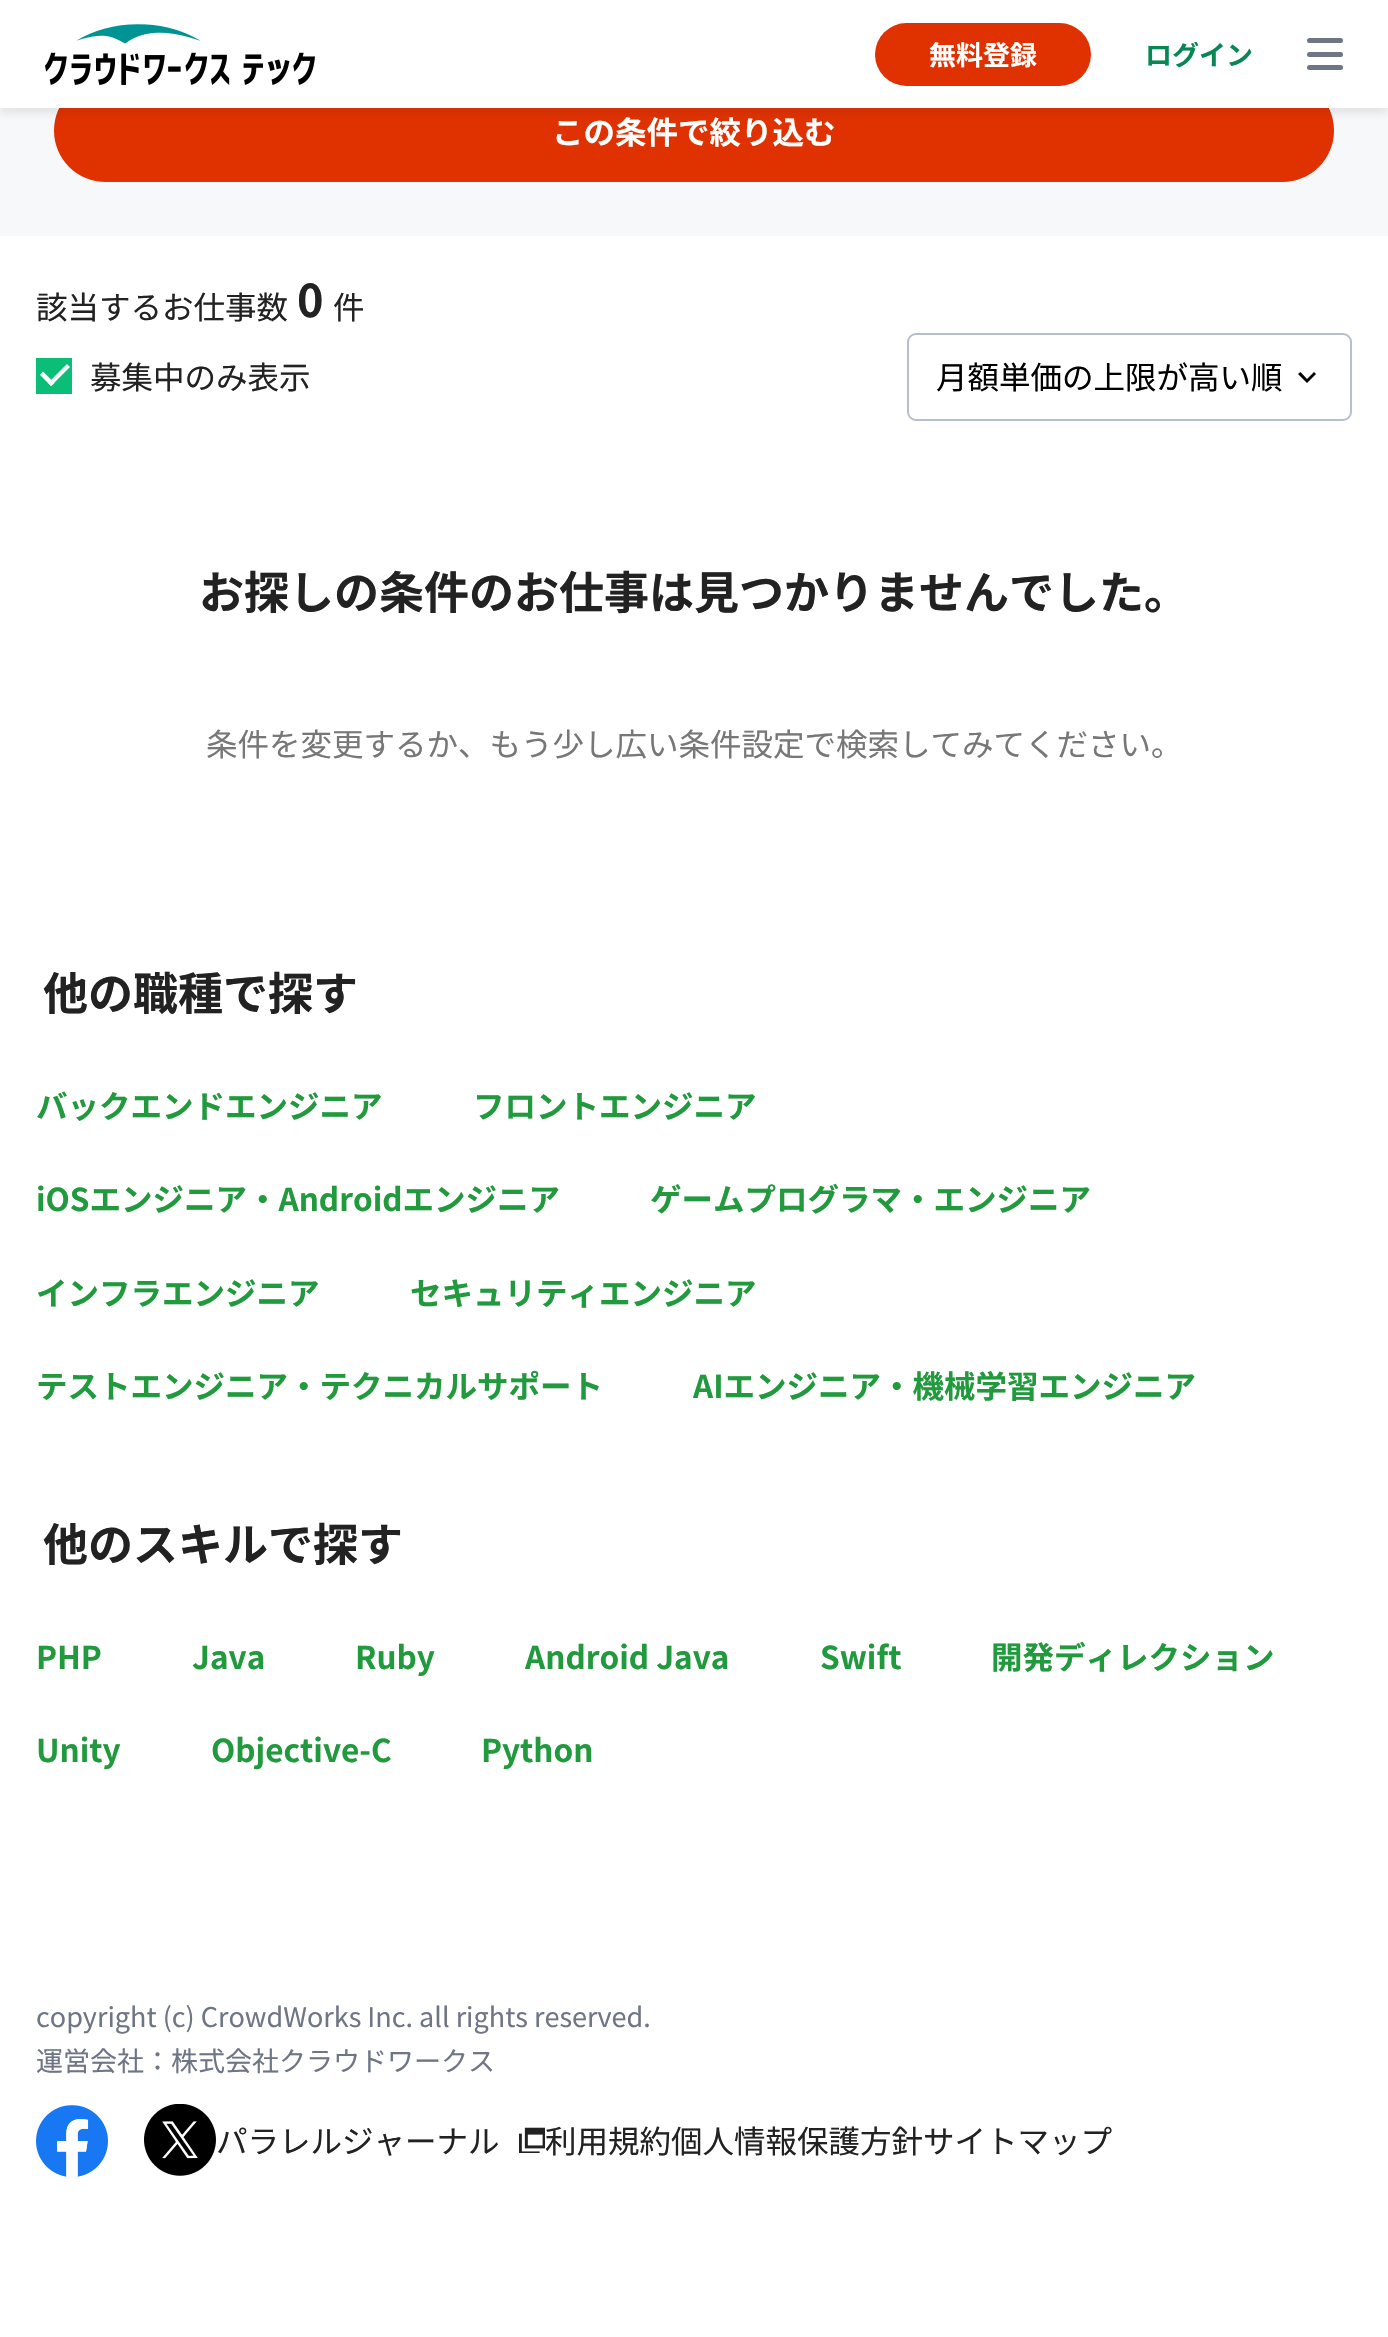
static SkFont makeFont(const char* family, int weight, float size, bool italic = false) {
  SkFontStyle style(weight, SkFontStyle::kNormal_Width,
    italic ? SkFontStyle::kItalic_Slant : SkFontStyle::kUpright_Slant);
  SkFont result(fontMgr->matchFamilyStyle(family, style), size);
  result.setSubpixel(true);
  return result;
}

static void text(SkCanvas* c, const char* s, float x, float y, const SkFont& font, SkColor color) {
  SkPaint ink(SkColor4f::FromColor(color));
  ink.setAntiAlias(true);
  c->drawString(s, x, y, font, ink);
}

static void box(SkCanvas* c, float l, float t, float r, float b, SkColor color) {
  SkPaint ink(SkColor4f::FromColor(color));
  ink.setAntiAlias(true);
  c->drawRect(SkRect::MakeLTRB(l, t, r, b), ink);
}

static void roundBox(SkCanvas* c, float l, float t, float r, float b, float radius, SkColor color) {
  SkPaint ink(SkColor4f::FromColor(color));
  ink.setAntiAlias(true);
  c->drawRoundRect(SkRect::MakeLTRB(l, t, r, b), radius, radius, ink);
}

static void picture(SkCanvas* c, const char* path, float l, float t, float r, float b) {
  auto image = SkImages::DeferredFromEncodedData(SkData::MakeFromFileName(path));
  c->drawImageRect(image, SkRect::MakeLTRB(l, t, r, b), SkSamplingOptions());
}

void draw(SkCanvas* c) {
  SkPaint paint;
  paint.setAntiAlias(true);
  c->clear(0xffffffff);
  box(c, 0, 108, 1388, 236, 0xfff7f8fa);
  roundBox(c, 54, 79, 1334, 182, 51.5f, 0xffe03100);
  paint.setColor(0x1a222222);
  paint.setMaskFilter(SkMaskFilter::MakeBlur(kNormal_SkBlurStyle, 4.5f));
  c->drawRect(SkRect::MakeLTRB(0, 5, 1388, 113), paint);
  paint.setMaskFilter(nullptr);
  box(c, 0, 0, 1388, 108, 0xffffffff);
  picture(c, "img_01.png", 45, 24, 315, 85);
  roundBox(c, 875, 23, 1091, 86, 31.5f, 0xffe03100);
  SkFont face1 = makeFont("Noto Sans JP", 700, 27);
  text(c, "無料登録", 929, 65, face1, 0xffffffff);
  text(c, "ログイン", 1145, 65, face1, 0xff088755);
  roundBox(c, 1307, 38, 1343, 43, 2.5f, 0xff6e7585);
  roundBox(c, 1307, 52, 1343, 57, 2.5f, 0xff6e7585);
  roundBox(c, 1307, 65, 1343, 70, 2.5f, 0xff6e7585);
  SkFont face2 = makeFont("Noto Sans JP", 700, 31.5f);
  text(c, "この条件で絞り込む", 552, 144, face2, 0xffffffff);
  SkFont face3 = makeFont("Noto Sans JP", 400, 31.5f);
  text(c, "該当するお仕事数", 36, 319, face3, 0xff222222);
  SkFont face4 = makeFont("Noto Sans JP", 700, 45);
  text(c, "0", 297, 317, face4, 0xff222222);
  text(c, "件", 333, 319, face3, 0xff222222);
  box(c, 36, 358, 72, 394, 0xff0bbe78);
  paint.setColor(0xffffffff);
  c->drawPath(SkPathBuilder().moveTo(67, 364).lineTo(70, 367).lineTo(51, 386).lineTo(48, 383).close().detach(), paint);
  c->drawPath(SkPathBuilder().moveTo(43, 371.5f).lineTo(54.5f, 383).lineTo(51, 386).lineTo(40, 375).close().detach(), paint);
  text(c, "募集中のみ表示", 90, 389, face3, 0xff222222);
  paint.setStyle(SkPaint::kStroke_Style);
  paint.setStrokeWidth(2);
  paint.setColor(0xffb6bfcc);
  c->drawRoundRect(SkRect::MakeLTRB(908, 334, 1351, 420), 8, 8, paint);
  text(c, "月額単価の上限が高い順", 936, 389, face3, 0xff000000);
  paint.setStyle(SkPaint::kFill_Style);
  paint.setColor(0xff000000);
  c->drawPath(SkPathBuilder().moveTo(1307, 383).lineTo(1298, 374).lineTo(1300.5f, 372).lineTo(1307, 379).lineTo(1314, 372).lineTo(1316, 374).close().detach(), paint);
  text(c, "お探しの条件のお仕事は見つかりませんでした。", 199, 609, face4, 0xff222222);
  text(c, "条件を変更するか、もう少し広い条件設定で検索してみてください。", 206, 756, face3, 0xff777777);
  text(c, "他の職種で探す", 43, 1010, face4, 0xff222222);
  text(c, "バックエンドエンジニア", 36, 1118, face2, 0xff21993d);
  text(c, "フロントエンジニア", 473, 1118, face2, 0xff21993d);
  text(c, "iOSエンジニア・Androidエンジニア", 36, 1211, face2, 0xff21993d);
  text(c, "ゲームプログラマ・エンジニア", 650, 1211, face2, 0xff21993d);
  text(c, "インフラエンジニア", 36, 1305, face2, 0xff21993d);
  text(c, "セキュリティエンジニア", 410, 1305, face2, 0xff21993d);
  text(c, "テストエンジニア・テクニカルサポート", 36, 1398, face2, 0xff21993d);
  text(c, "AIエンジニア・機械学習エンジニア", 693, 1398, face2, 0xff21993d);
  text(c, "他のスキルで探す", 43, 1561, face4, 0xff222222);
  text(c, "PHP", 36, 1669, face2, 0xff21993d);
  text(c, "Java", 192, 1669, face2, 0xff21993d);
  text(c, "Ruby", 355, 1669, face2, 0xff21993d);
  text(c, "Android Java", 525, 1669, face2, 0xff21993d);
  text(c, "Swift", 820, 1669, face2, 0xff21993d);
  text(c, "開発ディレクション", 991, 1669, face2, 0xff21993d);
  text(c, "Unity", 36, 1762, face2, 0xff21993d);
  text(c, "Objective-C", 211, 1762, face2, 0xff21993d);
  text(c, "Python", 481, 1762, face2, 0xff21993d);
  SkFont face5 = makeFont("Noto Sans JP", 400, 27);
  text(c, "copyright (c) CrowdWorks Inc. all rights reserved.", 36, 2027, face5, 0xff6e7585);
  text(c, "運営会社：株式会社クラウドワークス", 36, 2071, face5, 0xff6e7585);
  picture(c, "img_02.png", 36, 2105, 108, 2177);
  picture(c, "img_03.png", 144, 2104, 216, 2176);
  text(c, "パラレルジャーナル", 216, 2153, face3, 0xff222222);
  picture(c, "img_04.png", 518, 2127, 545, 2153);
  text(c, "利用規約個人情報保護方針サイトマップ", 545, 2153, face3, 0xff222222);
}
